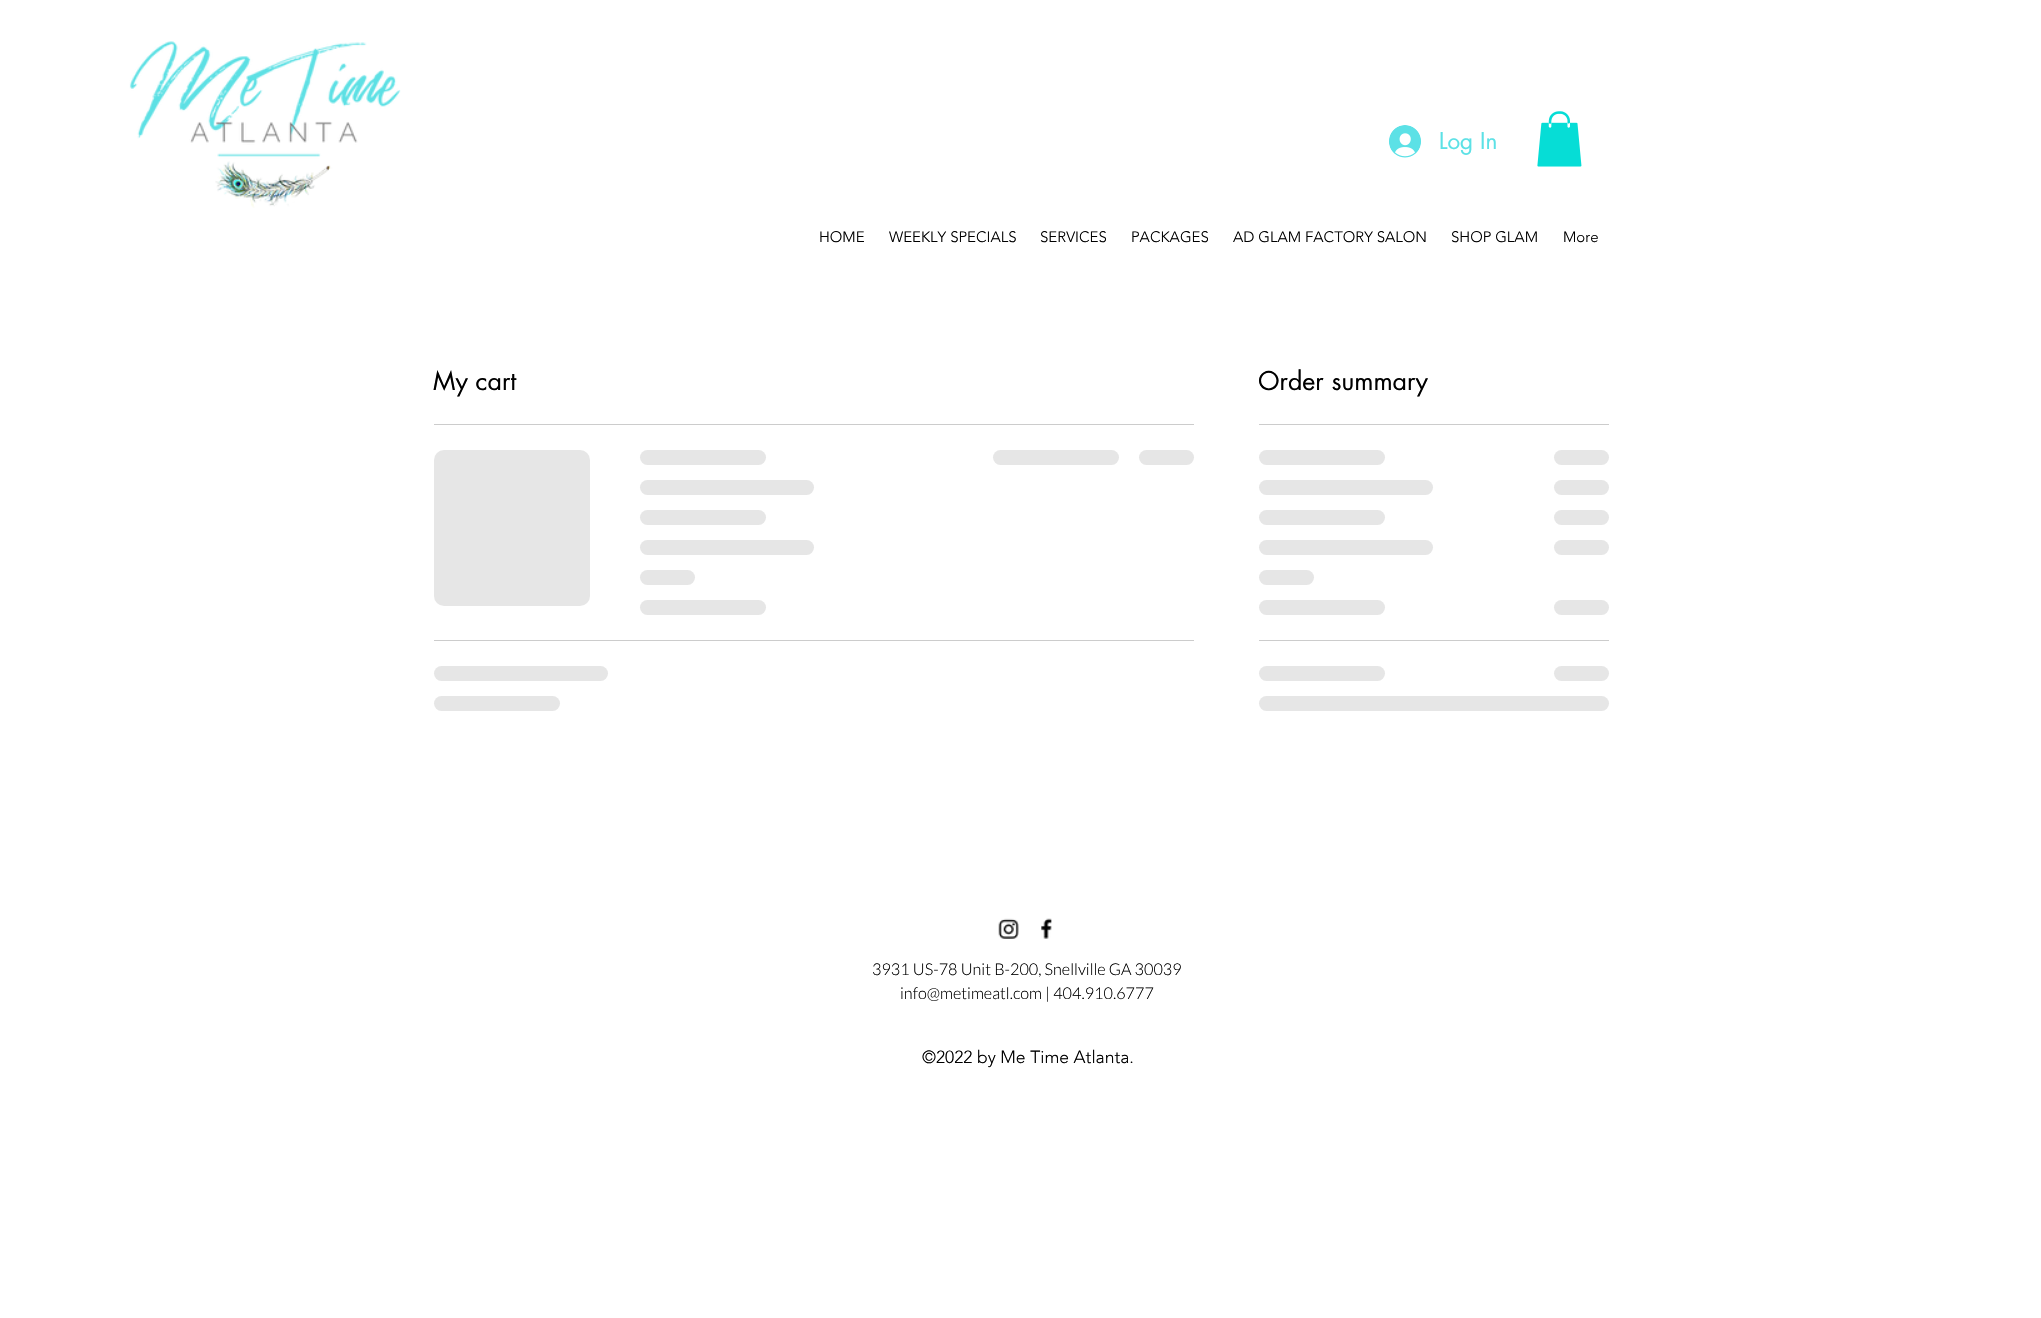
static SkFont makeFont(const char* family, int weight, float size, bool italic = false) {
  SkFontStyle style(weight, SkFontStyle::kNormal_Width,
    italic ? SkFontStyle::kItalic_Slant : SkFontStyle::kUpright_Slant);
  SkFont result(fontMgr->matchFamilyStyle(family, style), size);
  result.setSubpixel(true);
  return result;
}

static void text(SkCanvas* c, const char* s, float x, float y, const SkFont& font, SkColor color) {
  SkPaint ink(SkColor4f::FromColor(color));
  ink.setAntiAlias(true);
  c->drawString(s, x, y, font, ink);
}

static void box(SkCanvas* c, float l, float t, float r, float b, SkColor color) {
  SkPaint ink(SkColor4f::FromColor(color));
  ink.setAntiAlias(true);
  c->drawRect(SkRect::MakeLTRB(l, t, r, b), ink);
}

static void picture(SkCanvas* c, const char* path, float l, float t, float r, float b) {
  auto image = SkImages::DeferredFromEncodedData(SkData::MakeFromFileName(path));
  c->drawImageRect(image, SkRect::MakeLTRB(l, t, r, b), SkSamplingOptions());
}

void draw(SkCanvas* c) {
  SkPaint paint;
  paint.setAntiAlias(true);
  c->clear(0xffffffff);
  picture(c, "img_01.png", 129, 41, 401, 208);
  picture(c, "img_02.png", 1389, 125, 1421, 158);
  SkFont face1 = makeFont("futura", 400, 22.5f);
  text(c, "Log In", 1439, 149, face1, 0xff5ce1e6);
  picture(c, "img_03.png", 1537, 111, 1582, 167);
  SkFont face2 = makeFont("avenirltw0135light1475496", 300, 15);
  text(c, "HOME", 819, 242, face2, 0xff000000);
  text(c, "WEEKLY SPECIALS", 889, 242, face2, 0xff000000);
  text(c, "SERVICES", 1040, 242, face2, 0xff000000);
  text(c, "PACKAGES", 1131, 242, face2, 0xff000000);
  text(c, "AD GLAM FACTORY SALON", 1233, 242, face2, 0xff000000);
  text(c, "SHOP GLAM", 1451, 242, face2, 0xff000000);
  text(c, "More", 1563, 242, face2, 0xff000000);
  box(c, 434, 424, 1194, 425, 0xffcccccc);
  SkFont face3 = makeFont("futura", 400, 25);
  text(c, "My cart", 433, 390, face3, 0xff000000);
  {
    const SkColor colors[] = {0xffe6e6e6, 0xffcccccc, 0xffe6e6e6};
    const float stops[] = {0.25f, 0.37f, 0.63f};
    const SkPoint ends[] = {{434, 528}, {1059, 528}};
    paint.setShader(SkGradientShader::MakeLinear(ends, colors, stops, 3, SkTileMode::kClamp));
    paint.setAlpha(255);
  }
  c->drawRoundRect(SkRect::MakeLTRB(434, 450, 590, 606), 10, 10, paint);
  {
    const SkColor colors[] = {0xffe6e6e6, 0xffcccccc, 0xffe6e6e6};
    const float stops[] = {0.25f, 0.37f, 0.63f};
    const SkPoint ends[] = {{640, 458}, {1145, 458}};
    paint.setShader(SkGradientShader::MakeLinear(ends, colors, stops, 3, SkTileMode::kClamp));
    paint.setAlpha(255);
  }
  c->drawRoundRect(SkRect::MakeLTRB(640, 450, 766, 465), 7.5f, 7.5f, paint);
  {
    const SkColor colors[] = {0xffe6e6e6, 0xffcccccc, 0xffe6e6e6};
    const float stops[] = {0.25f, 0.37f, 0.63f};
    const SkPoint ends[] = {{640, 488}, {1335, 488}};
    paint.setShader(SkGradientShader::MakeLinear(ends, colors, stops, 3, SkTileMode::kClamp));
    paint.setAlpha(255);
  }
  c->drawRoundRect(SkRect::MakeLTRB(640, 480, 814, 495), 7.5f, 7.5f, paint);
  {
    const SkColor colors[] = {0xffe6e6e6, 0xffcccccc, 0xffe6e6e6};
    const float stops[] = {0.25f, 0.37f, 0.63f};
    const SkPoint ends[] = {{640, 518}, {1145, 518}};
    paint.setShader(SkGradientShader::MakeLinear(ends, colors, stops, 3, SkTileMode::kClamp));
    paint.setAlpha(255);
  }
  c->drawRoundRect(SkRect::MakeLTRB(640, 510, 766, 525), 7.5f, 7.5f, paint);
  {
    const SkColor colors[] = {0xffe6e6e6, 0xffcccccc, 0xffe6e6e6};
    const float stops[] = {0.25f, 0.37f, 0.63f};
    const SkPoint ends[] = {{640, 548}, {1335, 548}};
    paint.setShader(SkGradientShader::MakeLinear(ends, colors, stops, 3, SkTileMode::kClamp));
    paint.setAlpha(255);
  }
  c->drawRoundRect(SkRect::MakeLTRB(640, 540, 814, 555), 7.5f, 7.5f, paint);
  {
    const SkColor colors[] = {0xffe6e6e6, 0xffcccccc, 0xffe6e6e6};
    const float stops[] = {0.25f, 0.37f, 0.63f};
    const SkPoint ends[] = {{640, 578}, {860, 578}};
    paint.setShader(SkGradientShader::MakeLinear(ends, colors, stops, 3, SkTileMode::kClamp));
    paint.setAlpha(255);
  }
  c->drawRoundRect(SkRect::MakeLTRB(640, 570, 695, 585), 7.5f, 7.5f, paint);
  {
    const SkColor colors[] = {0xffe6e6e6, 0xffcccccc, 0xffe6e6e6};
    const float stops[] = {0.25f, 0.37f, 0.63f};
    const SkPoint ends[] = {{640, 608}, {1145, 608}};
    paint.setShader(SkGradientShader::MakeLinear(ends, colors, stops, 3, SkTileMode::kClamp));
    paint.setAlpha(255);
  }
  c->drawRoundRect(SkRect::MakeLTRB(640, 600, 766, 615), 7.5f, 7.5f, paint);
  {
    const SkColor colors[] = {0xffe6e6e6, 0xffcccccc, 0xffe6e6e6};
    const float stops[] = {0.25f, 0.37f, 0.63f};
    const SkPoint ends[] = {{993, 458}, {1498, 458}};
    paint.setShader(SkGradientShader::MakeLinear(ends, colors, stops, 3, SkTileMode::kClamp));
    paint.setAlpha(255);
  }
  c->drawRoundRect(SkRect::MakeLTRB(993, 450, 1119, 465), 7.5f, 7.5f, paint);
  {
    const SkColor colors[] = {0xffe6e6e6, 0xffcccccc, 0xffe6e6e6};
    const float stops[] = {0.25f, 0.37f, 0.63f};
    const SkPoint ends[] = {{1139, 458}, {1359, 458}};
    paint.setShader(SkGradientShader::MakeLinear(ends, colors, stops, 3, SkTileMode::kClamp));
    paint.setAlpha(255);
  }
  c->drawRoundRect(SkRect::MakeLTRB(1139, 450, 1194, 465), 7.5f, 7.5f, paint);
  box(c, 434, 640, 1194, 641, 0xffcccccc);
  {
    const SkColor colors[] = {0xffe6e6e6, 0xffcccccc, 0xffe6e6e6};
    const float stops[] = {0.25f, 0.37f, 0.63f};
    const SkPoint ends[] = {{434, 674}, {1129, 674}};
    paint.setShader(SkGradientShader::MakeLinear(ends, colors, stops, 3, SkTileMode::kClamp));
    paint.setAlpha(255);
  }
  c->drawRoundRect(SkRect::MakeLTRB(434, 666, 608, 681), 7.5f, 7.5f, paint);
  {
    const SkColor colors[] = {0xffe6e6e6, 0xffcccccc, 0xffe6e6e6};
    const float stops[] = {0.25f, 0.37f, 0.63f};
    const SkPoint ends[] = {{434, 704}, {939, 704}};
    paint.setShader(SkGradientShader::MakeLinear(ends, colors, stops, 3, SkTileMode::kClamp));
    paint.setAlpha(255);
  }
  c->drawRoundRect(SkRect::MakeLTRB(434, 696, 560, 711), 7.5f, 7.5f, paint);
  box(c, 1259, 424, 1609, 425, 0xffcccccc);
  text(c, "Order summary", 1258, 390, face3, 0xff000000);
  {
    const SkColor colors[] = {0xffe6e6e6, 0xffcccccc, 0xffe6e6e6};
    const float stops[] = {0.25f, 0.37f, 0.63f};
    const SkPoint ends[] = {{1259, 458}, {1764, 458}};
    paint.setShader(SkGradientShader::MakeLinear(ends, colors, stops, 3, SkTileMode::kClamp));
    paint.setAlpha(255);
  }
  c->drawRoundRect(SkRect::MakeLTRB(1259, 450, 1385, 465), 7.5f, 7.5f, paint);
  {
    const SkColor colors[] = {0xffe6e6e6, 0xffcccccc, 0xffe6e6e6};
    const float stops[] = {0.25f, 0.37f, 0.63f};
    const SkPoint ends[] = {{1554, 458}, {1774, 458}};
    paint.setShader(SkGradientShader::MakeLinear(ends, colors, stops, 3, SkTileMode::kClamp));
    paint.setAlpha(255);
  }
  c->drawRoundRect(SkRect::MakeLTRB(1554, 450, 1609, 465), 7.5f, 7.5f, paint);
  {
    const SkColor colors[] = {0xffe6e6e6, 0xffcccccc, 0xffe6e6e6};
    const float stops[] = {0.25f, 0.37f, 0.63f};
    const SkPoint ends[] = {{1259, 488}, {1954, 488}};
    paint.setShader(SkGradientShader::MakeLinear(ends, colors, stops, 3, SkTileMode::kClamp));
    paint.setAlpha(255);
  }
  c->drawRoundRect(SkRect::MakeLTRB(1259, 480, 1433, 495), 7.5f, 7.5f, paint);
  {
    const SkColor colors[] = {0xffe6e6e6, 0xffcccccc, 0xffe6e6e6};
    const float stops[] = {0.25f, 0.37f, 0.63f};
    const SkPoint ends[] = {{1554, 488}, {1774, 488}};
    paint.setShader(SkGradientShader::MakeLinear(ends, colors, stops, 3, SkTileMode::kClamp));
    paint.setAlpha(255);
  }
  c->drawRoundRect(SkRect::MakeLTRB(1554, 480, 1609, 495), 7.5f, 7.5f, paint);
  {
    const SkColor colors[] = {0xffe6e6e6, 0xffcccccc, 0xffe6e6e6};
    const float stops[] = {0.25f, 0.37f, 0.63f};
    const SkPoint ends[] = {{1259, 518}, {1764, 518}};
    paint.setShader(SkGradientShader::MakeLinear(ends, colors, stops, 3, SkTileMode::kClamp));
    paint.setAlpha(255);
  }
  c->drawRoundRect(SkRect::MakeLTRB(1259, 510, 1385, 525), 7.5f, 7.5f, paint);
  {
    const SkColor colors[] = {0xffe6e6e6, 0xffcccccc, 0xffe6e6e6};
    const float stops[] = {0.25f, 0.37f, 0.63f};
    const SkPoint ends[] = {{1554, 518}, {1774, 518}};
    paint.setShader(SkGradientShader::MakeLinear(ends, colors, stops, 3, SkTileMode::kClamp));
    paint.setAlpha(255);
  }
  c->drawRoundRect(SkRect::MakeLTRB(1554, 510, 1609, 525), 7.5f, 7.5f, paint);
  {
    const SkColor colors[] = {0xffe6e6e6, 0xffcccccc, 0xffe6e6e6};
    const float stops[] = {0.25f, 0.37f, 0.63f};
    const SkPoint ends[] = {{1259, 548}, {1954, 548}};
    paint.setShader(SkGradientShader::MakeLinear(ends, colors, stops, 3, SkTileMode::kClamp));
    paint.setAlpha(255);
  }
  c->drawRoundRect(SkRect::MakeLTRB(1259, 540, 1433, 555), 7.5f, 7.5f, paint);
  {
    const SkColor colors[] = {0xffe6e6e6, 0xffcccccc, 0xffe6e6e6};
    const float stops[] = {0.25f, 0.37f, 0.63f};
    const SkPoint ends[] = {{1554, 548}, {1774, 548}};
    paint.setShader(SkGradientShader::MakeLinear(ends, colors, stops, 3, SkTileMode::kClamp));
    paint.setAlpha(255);
  }
  c->drawRoundRect(SkRect::MakeLTRB(1554, 540, 1609, 555), 7.5f, 7.5f, paint);
  {
    const SkColor colors[] = {0xffe6e6e6, 0xffcccccc, 0xffe6e6e6};
    const float stops[] = {0.25f, 0.37f, 0.63f};
    const SkPoint ends[] = {{1259, 578}, {1479, 578}};
    paint.setShader(SkGradientShader::MakeLinear(ends, colors, stops, 3, SkTileMode::kClamp));
    paint.setAlpha(255);
  }
  c->drawRoundRect(SkRect::MakeLTRB(1259, 570, 1314, 585), 7.5f, 7.5f, paint);
  {
    const SkColor colors[] = {0xffe6e6e6, 0xffcccccc, 0xffe6e6e6};
    const float stops[] = {0.25f, 0.37f, 0.63f};
    const SkPoint ends[] = {{1259, 608}, {1764, 608}};
    paint.setShader(SkGradientShader::MakeLinear(ends, colors, stops, 3, SkTileMode::kClamp));
    paint.setAlpha(255);
  }
  c->drawRoundRect(SkRect::MakeLTRB(1259, 600, 1385, 615), 7.5f, 7.5f, paint);
  {
    const SkColor colors[] = {0xffe6e6e6, 0xffcccccc, 0xffe6e6e6};
    const float stops[] = {0.25f, 0.37f, 0.63f};
    const SkPoint ends[] = {{1554, 608}, {1774, 608}};
    paint.setShader(SkGradientShader::MakeLinear(ends, colors, stops, 3, SkTileMode::kClamp));
    paint.setAlpha(255);
  }
  c->drawRoundRect(SkRect::MakeLTRB(1554, 600, 1609, 615), 7.5f, 7.5f, paint);
  box(c, 1259, 640, 1609, 641, 0xffcccccc);
  {
    const SkColor colors[] = {0xffe6e6e6, 0xffcccccc, 0xffe6e6e6};
    const float stops[] = {0.25f, 0.37f, 0.63f};
    const SkPoint ends[] = {{1259, 674}, {1764, 674}};
    paint.setShader(SkGradientShader::MakeLinear(ends, colors, stops, 3, SkTileMode::kClamp));
    paint.setAlpha(255);
  }
  c->drawRoundRect(SkRect::MakeLTRB(1259, 666, 1385, 681), 7.5f, 7.5f, paint);
  {
    const SkColor colors[] = {0xffe6e6e6, 0xffcccccc, 0xffe6e6e6};
    const float stops[] = {0.25f, 0.37f, 0.63f};
    const SkPoint ends[] = {{1554, 674}, {1774, 674}};
    paint.setShader(SkGradientShader::MakeLinear(ends, colors, stops, 3, SkTileMode::kClamp));
    paint.setAlpha(255);
  }
  c->drawRoundRect(SkRect::MakeLTRB(1554, 666, 1609, 681), 7.5f, 7.5f, paint);
  {
    const SkColor colors[] = {0xffe6e6e6, 0xffcccccc, 0xffe6e6e6};
    const float stops[] = {0.25f, 0.37f, 0.63f};
    const SkPoint ends[] = {{1259, 704}, {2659, 704}};
    paint.setShader(SkGradientShader::MakeLinear(ends, colors, stops, 3, SkTileMode::kClamp));
    paint.setAlpha(255);
  }
  c->drawRoundRect(SkRect::MakeLTRB(1259, 696, 1609, 711), 7.5f, 7.5f, paint);
  picture(c, "img_04.png", 998, 918, 1019, 939);
  picture(c, "img_05.png", 1041, 918, 1052, 939);
  SkFont face4 = makeFont("Lato", 300, 16.25f);
  text(c, "3931 US-78 Unit B-200, Snellville GA 30039", 872, 975, face4, 0xff000000);
  text(c, "info@metimeatl.com | 404.910.6777", 900, 999, face4, 0xff000000);
  SkFont face5 = makeFont("avenirltw0135light1475496", 300, 17.5f);
  text(c, "©2022 by Me Time Atlanta.", 922, 1063, face5, 0xff000000);
}
